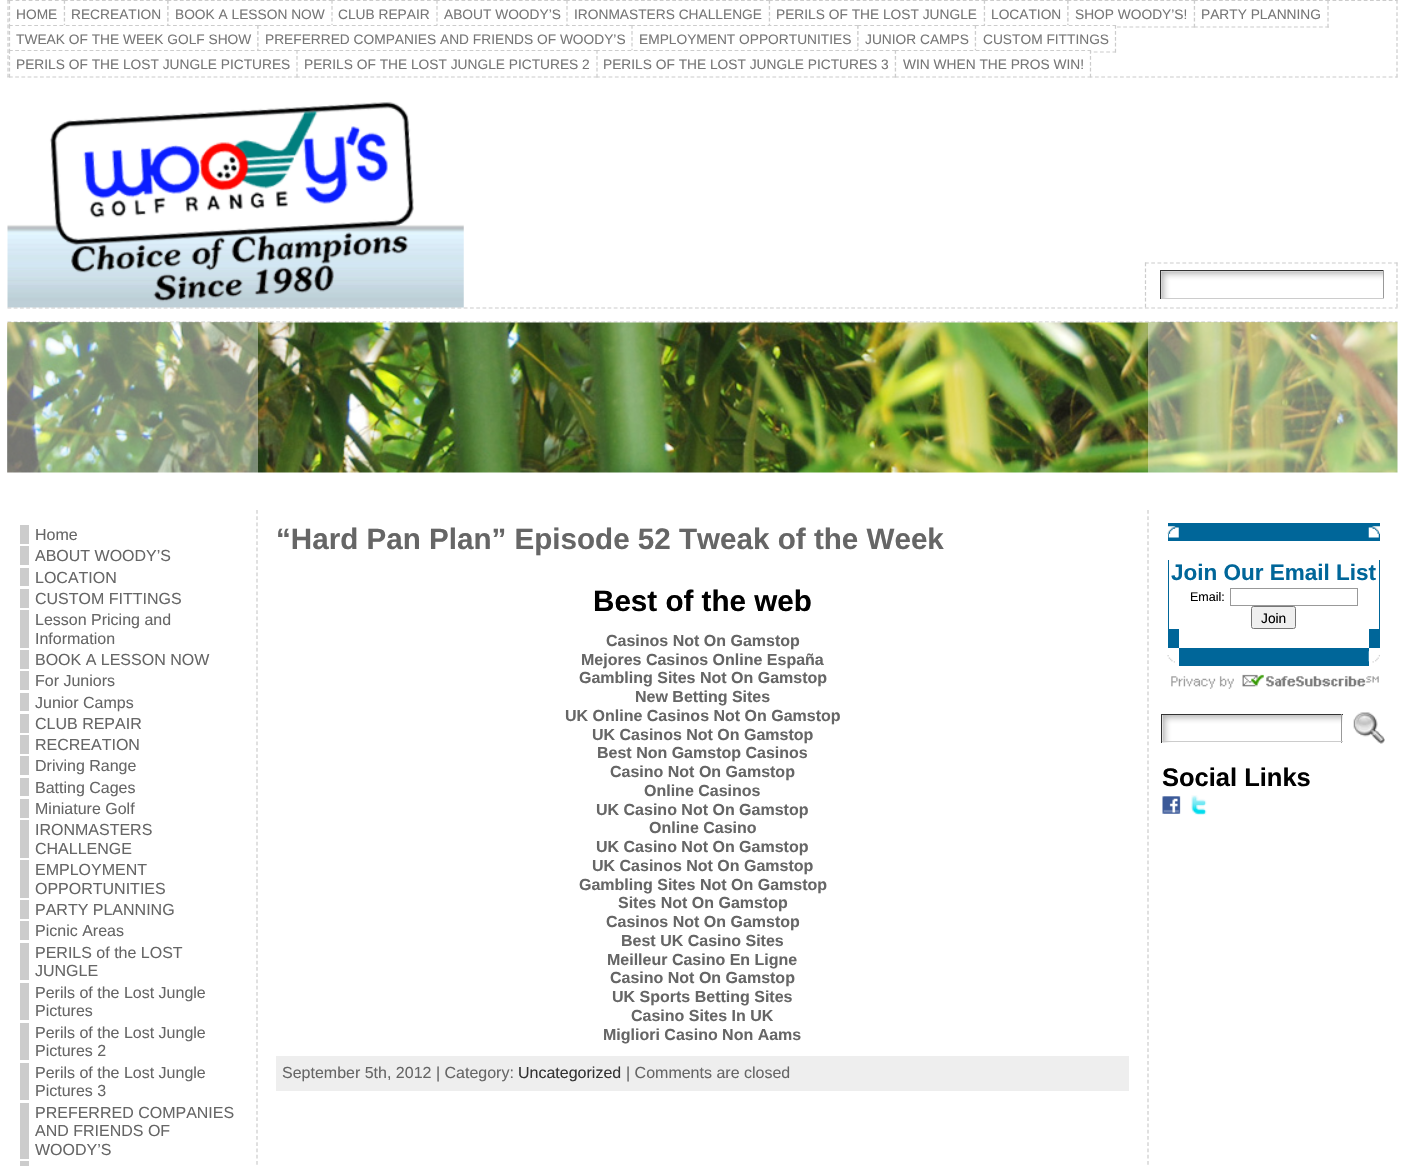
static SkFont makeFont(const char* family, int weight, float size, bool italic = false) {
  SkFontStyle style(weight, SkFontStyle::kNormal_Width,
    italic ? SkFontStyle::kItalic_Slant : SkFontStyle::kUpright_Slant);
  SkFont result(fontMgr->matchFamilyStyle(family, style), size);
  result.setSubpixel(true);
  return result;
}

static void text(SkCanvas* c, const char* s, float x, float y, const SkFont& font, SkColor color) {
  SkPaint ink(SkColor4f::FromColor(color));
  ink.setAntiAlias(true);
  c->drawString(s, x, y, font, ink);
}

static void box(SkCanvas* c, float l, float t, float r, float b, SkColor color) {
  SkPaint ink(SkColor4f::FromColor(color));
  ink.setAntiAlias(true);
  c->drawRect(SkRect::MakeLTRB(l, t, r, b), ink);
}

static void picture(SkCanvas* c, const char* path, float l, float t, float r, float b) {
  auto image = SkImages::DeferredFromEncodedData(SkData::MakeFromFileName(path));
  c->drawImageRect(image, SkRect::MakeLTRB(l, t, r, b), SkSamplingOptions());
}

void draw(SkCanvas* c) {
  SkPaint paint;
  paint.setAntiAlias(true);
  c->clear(0xffffffff);
  paint.setStyle(SkPaint::kStroke_Style);
  paint.setStrokeWidth(1.2f);
  paint.setColor(0xffcccccc);
  paint.setPathEffect(SkDashPathEffect::Make({{3.75f, 2.5f}}, 0));
  c->drawPath(SkPathBuilder().moveTo(7.5f, 0.5f).lineTo(1397.5f, 0.5f).detach(), paint);
  paint.setPathEffect(nullptr);
  paint.setPathEffect(SkDashPathEffect::Make({{3.75f, 2.4f}}, 0));
  c->drawPath(SkPathBuilder().moveTo(1397, 0).lineTo(1397, 77.5f).detach(), paint);
  paint.setPathEffect(nullptr);
  paint.setPathEffect(SkDashPathEffect::Make({{3.75f, 2.5f}}, 0));
  c->drawPath(SkPathBuilder().moveTo(7.5f, 77).lineTo(1397.5f, 77).detach(), paint);
  paint.setPathEffect(nullptr);
  paint.setPathEffect(SkDashPathEffect::Make({{3.75f, 2.4f}}, 0));
  c->drawPath(SkPathBuilder().moveTo(8, 0).lineTo(8, 77.5f).detach(), paint);
  paint.setPathEffect(nullptr);
  box(c, 9, 0, 64, 2, 0xffffffff);
  paint.setPathEffect(SkDashPathEffect::Make({{3.75f, 2.81f}}, 0));
  c->drawPath(SkPathBuilder().moveTo(9, 0.5f).lineTo(65, 0.5f).detach(), paint);
  paint.setPathEffect(nullptr);
  paint.setPathEffect(SkDashPathEffect::Make({{3.75f, 2.19f}}, 0));
  c->drawPath(SkPathBuilder().moveTo(64.5f, 0).lineTo(64.5f, 27.5f).moveTo(9.5f, 0).lineTo(9.5f, 27.5f).detach(), paint);
  paint.setPathEffect(nullptr);
  SkFont face1 = makeFont("Liberation Sans", 400, 13.75f);
  text(c, "HOME", 16, 19, face1, 0xff777777);
  box(c, 64, 0, 168, 25, 0xffffffff);
  paint.setPathEffect(SkDashPathEffect::Make({{3.75f, 2.58f}}, 0));
  c->drawPath(SkPathBuilder().moveTo(64, 0.5f).lineTo(169, 0.5f).detach(), paint);
  paint.setPathEffect(nullptr);
  paint.setPathEffect(SkDashPathEffect::Make({{3.75f, 2.19f}}, 0));
  c->drawPath(SkPathBuilder().moveTo(168, 0).lineTo(168, 27.5f).detach(), paint);
  paint.setPathEffect(nullptr);
  paint.setPathEffect(SkDashPathEffect::Make({{3.75f, 2.19f}}, 0));
  c->drawPath(SkPathBuilder().moveTo(64.5f, 0).lineTo(64.5f, 27.5f).detach(), paint);
  paint.setPathEffect(nullptr);
  text(c, "RECREATION", 71, 19, face1, 0xff777777);
  box(c, 168, 0, 330, 25, 0xffffffff);
  paint.setPathEffect(SkDashPathEffect::Make({{3.75f, 2.45f}}, 0));
  c->drawPath(SkPathBuilder().moveTo(167.5f, 0.5f).lineTo(332.5f, 0.5f).detach(), paint);
  paint.setPathEffect(nullptr);
  paint.setPathEffect(SkDashPathEffect::Make({{3.75f, 2.19f}}, 0));
  c->drawPath(SkPathBuilder().moveTo(168, 0).lineTo(168, 27.5f).detach(), paint);
  paint.setPathEffect(nullptr);
  text(c, "BOOK A LESSON NOW", 175, 19, face1, 0xff777777);
  box(c, 331, 0, 436, 2, 0xffffffff);
  paint.setPathEffect(SkDashPathEffect::Make({{3.75f, 2.65f}}, 0));
  c->drawPath(SkPathBuilder().moveTo(331, 0.5f).lineTo(437.5f, 0.5f).detach(), paint);
  paint.setPathEffect(nullptr);
  paint.setPathEffect(SkDashPathEffect::Make({{3.75f, 2.19f}}, 0));
  c->drawPath(SkPathBuilder().moveTo(332, 0).lineTo(332, 27.5f).detach(), paint);
  paint.setPathEffect(nullptr);
  text(c, "CLUB REPAIR", 338, 19, face1, 0xff777777);
  box(c, 436, 0, 566, 2, 0xffffffff);
  paint.setPathEffect(SkDashPathEffect::Make({{3.75f, 2.62f}}, 0));
  c->drawPath(SkPathBuilder().moveTo(436, 0.5f).lineTo(567.5f, 0.5f).detach(), paint);
  paint.setPathEffect(nullptr);
  paint.setPathEffect(SkDashPathEffect::Make({{3.75f, 2.19f}}, 0));
  c->drawPath(SkPathBuilder().moveTo(437, 0).lineTo(437, 27.5f).detach(), paint);
  paint.setPathEffect(nullptr);
  text(c, "ABOUT WOODY’S", 444, 19, face1, 0xff777777);
  box(c, 566, 0, 768, 2, 0xffffffff);
  paint.setPathEffect(SkDashPathEffect::Make({{3.75f, 2.5f}}, 0));
  c->drawPath(SkPathBuilder().moveTo(566, 0.5f).lineTo(770, 0.5f).detach(), paint);
  paint.setPathEffect(nullptr);
  paint.setPathEffect(SkDashPathEffect::Make({{3.75f, 2.19f}}, 0));
  c->drawPath(SkPathBuilder().moveTo(769.5f, 0).lineTo(769.5f, 27.5f).detach(), paint);
  paint.setPathEffect(nullptr);
  paint.setPathEffect(SkDashPathEffect::Make({{3.75f, 2.19f}}, 0));
  c->drawPath(SkPathBuilder().moveTo(567, 0).lineTo(567, 27.5f).detach(), paint);
  paint.setPathEffect(nullptr);
  text(c, "IRONMASTERS CHALLENGE", 574, 19, face1, 0xff777777);
  box(c, 769, 0, 984, 25, 0xffffffff);
  paint.setPathEffect(SkDashPathEffect::Make({{3.75f, 2.5f}}, 0));
  c->drawPath(SkPathBuilder().moveTo(769, 0.5f).lineTo(985, 0.5f).detach(), paint);
  paint.setPathEffect(nullptr);
  paint.setPathEffect(SkDashPathEffect::Make({{3.75f, 2.19f}}, 0));
  c->drawPath(SkPathBuilder().moveTo(984.5f, 0).lineTo(984.5f, 27.5f).detach(), paint);
  paint.setPathEffect(nullptr);
  paint.setPathEffect(SkDashPathEffect::Make({{3.75f, 2.19f}}, 0));
  c->drawPath(SkPathBuilder().moveTo(769.5f, 0).lineTo(769.5f, 27.5f).detach(), paint);
  paint.setPathEffect(nullptr);
  text(c, "PERILS OF THE LOST JUNGLE", 776, 19, face1, 0xff777777);
  box(c, 984, 0, 1068, 25, 0xffffffff);
  paint.setPathEffect(SkDashPathEffect::Make({{3.75f, 2.5f}}, 0));
  c->drawPath(SkPathBuilder().moveTo(984, 0.5f).lineTo(1069, 0.5f).detach(), paint);
  paint.setPathEffect(nullptr);
  paint.setPathEffect(SkDashPathEffect::Make({{3.75f, 2.19f}}, 0));
  c->drawPath(SkPathBuilder().moveTo(1068, 0).lineTo(1068, 27.5f).detach(), paint);
  paint.setPathEffect(nullptr);
  paint.setPathEffect(SkDashPathEffect::Make({{3.75f, 2.19f}}, 0));
  c->drawPath(SkPathBuilder().moveTo(984.5f, 0).lineTo(984.5f, 27.5f).detach(), paint);
  paint.setPathEffect(nullptr);
  text(c, "LOCATION", 991, 19, face1, 0xff777777);
  box(c, 1068, 0, 1193, 28, 0xffffffff);
  paint.setPathEffect(SkDashPathEffect::Make({{3.75f, 2.44f}}, 0));
  c->drawPath(SkPathBuilder().moveTo(1067.5f, 0.5f).lineTo(1195, 0.5f).detach(), paint);
  paint.setPathEffect(nullptr);
  paint.setPathEffect(SkDashPathEffect::Make({{3.75f, 2.19f}}, 0));
  c->drawPath(SkPathBuilder().moveTo(1194.5f, 0).lineTo(1194.5f, 27.5f).detach(), paint);
  paint.setPathEffect(nullptr);
  paint.setPathEffect(SkDashPathEffect::Make({{3.75f, 2.44f}}, 0));
  c->drawPath(SkPathBuilder().moveTo(1067.5f, 27).lineTo(1195, 27).detach(), paint);
  paint.setPathEffect(nullptr);
  paint.setPathEffect(SkDashPathEffect::Make({{3.75f, 2.19f}}, 0));
  c->drawPath(SkPathBuilder().moveTo(1068, 0).lineTo(1068, 27.5f).detach(), paint);
  paint.setPathEffect(nullptr);
  text(c, "SHOP WOODY’S!", 1075, 19, face1, 0xff777777);
  box(c, 1194, 0, 1329, 28, 0xffffffff);
  paint.setPathEffect(SkDashPathEffect::Make({{3.75f, 2.5f}}, 0));
  c->drawPath(SkPathBuilder().moveTo(1194, 0.5f).lineTo(1329, 0.5f).detach(), paint);
  paint.setPathEffect(nullptr);
  paint.setPathEffect(SkDashPathEffect::Make({{3.75f, 2.19f}}, 0));
  c->drawPath(SkPathBuilder().moveTo(1328, 0).lineTo(1328, 27.5f).detach(), paint);
  paint.setPathEffect(nullptr);
  paint.setPathEffect(SkDashPathEffect::Make({{3.75f, 2.5f}}, 0));
  c->drawPath(SkPathBuilder().moveTo(1194, 27).lineTo(1329, 27).detach(), paint);
  paint.setPathEffect(nullptr);
  paint.setPathEffect(SkDashPathEffect::Make({{3.75f, 2.19f}}, 0));
  c->drawPath(SkPathBuilder().moveTo(1194.5f, 0).lineTo(1194.5f, 27.5f).detach(), paint);
  paint.setPathEffect(nullptr);
  text(c, "PARTY PLANNING", 1201, 19, face1, 0xff777777);
  box(c, 9, 25, 169, 28, 0xffffffff);
  paint.setPathEffect(SkDashPathEffect::Make({{3.75f, 2.56f}}, 0));
  c->drawPath(SkPathBuilder().moveTo(9, 25.5f).lineTo(259, 25.5f).detach(), paint);
  paint.setPathEffect(nullptr);
  paint.setPathEffect(SkDashPathEffect::Make({{3.75f, 2.19f}}, 0));
  c->drawPath(SkPathBuilder().moveTo(258, 25).lineTo(258, 52.5f).detach(), paint);
  paint.setPathEffect(nullptr);
  paint.setPathEffect(SkDashPathEffect::Make({{3.75f, 2.19f}}, 0));
  c->drawPath(SkPathBuilder().moveTo(9.5f, 25).lineTo(9.5f, 52.5f).detach(), paint);
  paint.setPathEffect(nullptr);
  text(c, "TWEAK OF THE WEEK GOLF SHOW", 16, 44, face1, 0xff777777);
  box(c, 258, 25, 568, 50, 0xffffffff);
  paint.setPathEffect(SkDashPathEffect::Make({{3.75f, 2.54f}}, 0));
  c->drawPath(SkPathBuilder().moveTo(257.5f, 25.5f).lineTo(632.5f, 25.5f).detach(), paint);
  paint.setPathEffect(nullptr);
  paint.setPathEffect(SkDashPathEffect::Make({{3.75f, 2.19f}}, 0));
  c->drawPath(SkPathBuilder().moveTo(258, 25).lineTo(258, 52.5f).detach(), paint);
  paint.setPathEffect(nullptr);
  text(c, "PREFERRED COMPANIES AND FRIENDS OF WOODY’S", 265, 44, face1, 0xff777777);
  box(c, 631, 25, 771, 28, 0xffffffff);
  paint.setPathEffect(SkDashPathEffect::Make({{3.75f, 2.46f}}, 0));
  c->drawPath(SkPathBuilder().moveTo(631, 25.5f).lineTo(859, 25.5f).detach(), paint);
  paint.setPathEffect(nullptr);
  paint.setPathEffect(SkDashPathEffect::Make({{3.75f, 2.19f}}, 0));
  c->drawPath(SkPathBuilder().moveTo(858, 25).lineTo(858, 52.5f).detach(), paint);
  paint.setPathEffect(nullptr);
  paint.setPathEffect(SkDashPathEffect::Make({{3.75f, 2.19f}}, 0));
  c->drawPath(SkPathBuilder().moveTo(632, 25).lineTo(632, 52.5f).detach(), paint);
  paint.setPathEffect(nullptr);
  text(c, "EMPLOYMENT OPPORTUNITIES", 639, 44, face1, 0xff777777);
  box(c, 858, 25, 859, 50, 0xffffffff);
  paint.setPathEffect(SkDashPathEffect::Make({{3.75f, 2.64f}}, 0));
  c->drawPath(SkPathBuilder().moveTo(857.5f, 25.5f).lineTo(976, 25.5f).detach(), paint);
  paint.setPathEffect(nullptr);
  paint.setPathEffect(SkDashPathEffect::Make({{3.75f, 2.19f}}, 0));
  c->drawPath(SkPathBuilder().moveTo(975.5f, 25).lineTo(975.5f, 52.5f).detach(), paint);
  paint.setPathEffect(nullptr);
  paint.setPathEffect(SkDashPathEffect::Make({{3.75f, 2.19f}}, 0));
  c->drawPath(SkPathBuilder().moveTo(858, 25).lineTo(858, 52.5f).detach(), paint);
  paint.setPathEffect(nullptr);
  text(c, "JUNIOR CAMPS", 865, 44, face1, 0xff777777);
  box(c, 975, 25, 1115, 53, 0xffffffff);
  paint.setPathEffect(SkDashPathEffect::Make({{3.75f, 2.5f}}, 0));
  c->drawPath(SkPathBuilder().moveTo(975, 25.5f).lineTo(1116, 25.5f).detach(), paint);
  paint.setPathEffect(nullptr);
  paint.setPathEffect(SkDashPathEffect::Make({{3.75f, 2.19f}}, 0));
  c->drawPath(SkPathBuilder().moveTo(1115.5f, 25).lineTo(1115.5f, 52.5f).detach(), paint);
  paint.setPathEffect(nullptr);
  paint.setPathEffect(SkDashPathEffect::Make({{3.75f, 2.5f}}, 0));
  c->drawPath(SkPathBuilder().moveTo(975, 52).lineTo(1116, 52).detach(), paint);
  paint.setPathEffect(nullptr);
  paint.setPathEffect(SkDashPathEffect::Make({{3.75f, 2.19f}}, 0));
  c->drawPath(SkPathBuilder().moveTo(975.5f, 25).lineTo(975.5f, 52.5f).detach(), paint);
  paint.setPathEffect(nullptr);
  text(c, "CUSTOM FITTINGS", 983, 44, face1, 0xff777777);
  picture(c, "img_01.png", 7, 77, 464, 308);
  box(c, 9, 50, 296, 78, 0xffffffff);
  paint.setPathEffect(SkDashPathEffect::Make({{3.75f, 2.45f}}, 0));
  c->drawPath(SkPathBuilder().moveTo(9, 50.5f).lineTo(297.5f, 50.5f).detach(), paint);
  paint.setPathEffect(nullptr);
  paint.setPathEffect(SkDashPathEffect::Make({{3.75f, 2.45f}}, 0));
  c->drawPath(SkPathBuilder().moveTo(9, 77).lineTo(297.5f, 77).detach(), paint);
  paint.setPathEffect(nullptr);
  paint.setPathEffect(SkDashPathEffect::Make({{3.75f, 2.19f}}, 0));
  c->drawPath(SkPathBuilder().moveTo(9.5f, 50).lineTo(9.5f, 77.5f).detach(), paint);
  paint.setPathEffect(nullptr);
  text(c, "PERILS OF THE LOST JUNGLE PICTURES", 16, 69, face1, 0xff777777);
  box(c, 296, 50, 596, 78, 0xffffffff);
  paint.setPathEffect(SkDashPathEffect::Make({{3.75f, 2.45f}}, 0));
  c->drawPath(SkPathBuilder().moveTo(296, 50.5f).lineTo(597.5f, 50.5f).detach(), paint);
  paint.setPathEffect(nullptr);
  paint.setPathEffect(SkDashPathEffect::Make({{3.75f, 2.45f}}, 0));
  c->drawPath(SkPathBuilder().moveTo(296, 77).lineTo(597.5f, 77).detach(), paint);
  paint.setPathEffect(nullptr);
  paint.setPathEffect(SkDashPathEffect::Make({{3.75f, 2.19f}}, 0));
  c->drawPath(SkPathBuilder().moveTo(297, 50).lineTo(297, 77.5f).detach(), paint);
  paint.setPathEffect(nullptr);
  text(c, "PERILS OF THE LOST JUNGLE PICTURES 2", 304, 69, face1, 0xff777777);
  box(c, 596, 50, 893, 78, 0xffffffff);
  paint.setPathEffect(SkDashPathEffect::Make({{3.75f, 2.55f}}, 0));
  c->drawPath(SkPathBuilder().moveTo(596, 50.5f).lineTo(896, 50.5f).detach(), paint);
  paint.setPathEffect(nullptr);
  paint.setPathEffect(SkDashPathEffect::Make({{3.75f, 2.19f}}, 0));
  c->drawPath(SkPathBuilder().moveTo(895.5f, 50).lineTo(895.5f, 77.5f).detach(), paint);
  paint.setPathEffect(nullptr);
  paint.setPathEffect(SkDashPathEffect::Make({{3.75f, 2.55f}}, 0));
  c->drawPath(SkPathBuilder().moveTo(596, 77).lineTo(896, 77).detach(), paint);
  paint.setPathEffect(nullptr);
  paint.setPathEffect(SkDashPathEffect::Make({{3.75f, 2.19f}}, 0));
  c->drawPath(SkPathBuilder().moveTo(597, 50).lineTo(597, 77.5f).detach(), paint);
  paint.setPathEffect(nullptr);
  text(c, "PERILS OF THE LOST JUNGLE PICTURES 3", 603, 69, face1, 0xff777777);
  box(c, 895, 50, 1091, 78, 0xffffffff);
  paint.setPathEffect(SkDashPathEffect::Make({{3.75f, 2.46f}}, 0));
  c->drawPath(SkPathBuilder().moveTo(895, 50.5f).lineTo(1091, 50.5f).detach(), paint);
  paint.setPathEffect(nullptr);
  paint.setPathEffect(SkDashPathEffect::Make({{3.75f, 2.19f}}, 0));
  c->drawPath(SkPathBuilder().moveTo(1090.5f, 50).lineTo(1090.5f, 77.5f).detach(), paint);
  paint.setPathEffect(nullptr);
  paint.setPathEffect(SkDashPathEffect::Make({{3.75f, 2.46f}}, 0));
  c->drawPath(SkPathBuilder().moveTo(895, 77).lineTo(1091, 77).detach(), paint);
  paint.setPathEffect(nullptr);
  paint.setPathEffect(SkDashPathEffect::Make({{3.75f, 2.19f}}, 0));
  c->drawPath(SkPathBuilder().moveTo(895.5f, 50).lineTo(895.5f, 77.5f).detach(), paint);
  paint.setPathEffect(nullptr);
  text(c, "WIN WHEN THE PROS WIN!", 903, 69, face1, 0xff777777);
  paint.setPathEffect(SkDashPathEffect::Make({{3.75f, 2.48f}}, 0));
  c->drawPath(SkPathBuilder().moveTo(1145, 263).lineTo(1397.5f, 263).detach(), paint);
  paint.setPathEffect(nullptr);
  paint.setPathEffect(SkDashPathEffect::Make({{3.75f, 2.14f}}, 0));
  c->drawPath(SkPathBuilder().moveTo(1397, 262.5f).lineTo(1397, 307.5f).detach(), paint);
  paint.setPathEffect(nullptr);
  paint.setPathEffect(SkDashPathEffect::Make({{3.75f, 2.14f}}, 0));
  c->drawPath(SkPathBuilder().moveTo(1145.5f, 262.5f).lineTo(1145.5f, 307.5f).detach(), paint);
  paint.setPathEffect(nullptr);
  picture(c, "img_02.png", 1161, 271, 1383, 298);
  box(c, 1160, 270, 1384, 271, 0xff333333);
  box(c, 1383, 270, 1384, 299, 0xff999999);
  box(c, 1160, 298, 1384, 299, 0xffcccccc);
  box(c, 1160, 270, 1161, 299, 0xff333333);
  paint.setPathEffect(SkDashPathEffect::Make({{3.75f, 2.5f}}, 0));
  c->drawPath(SkPathBuilder().moveTo(7.5f, 308).lineTo(1397.5f, 308).detach(), paint);
  paint.setPathEffect(nullptr);
  paint.setPathEffect(SkDashPathEffect::Make({{3.75f, 2.5f}}, 0));
  c->drawPath(SkPathBuilder().moveTo(7.5f, 322).lineTo(1397.5f, 322).detach(), paint);
  paint.setPathEffect(nullptr);
  picture(c, "img_03.png", 7, 322, 1398, 473);
  box(c, 8, 323, 258, 473, 0x66ffffff);
  box(c, 1148, 323, 1398, 473, 0x66ffffff);
  paint.setPathEffect(SkDashPathEffect::Make({{3.75f, 2.51f}}, 0));
  c->drawPath(SkPathBuilder().moveTo(257, 510).lineTo(257, 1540).detach(), paint);
  paint.setPathEffect(nullptr);
  box(c, 20, 525, 29, 544, 0xffcccccc);
  SkFont face2 = makeFont("Liberation Sans", 400, 16);
  text(c, "Home", 35, 540, face2, 0xff666666);
  box(c, 20, 546, 29, 565, 0xffcccccc);
  text(c, "ABOUT WOODY’S", 35, 561, face2, 0xff666666);
  box(c, 20, 568, 29, 586, 0xffcccccc);
  text(c, "LOCATION", 35, 583, face2, 0xff666666);
  box(c, 20, 589, 29, 608, 0xffcccccc);
  text(c, "CUSTOM FITTINGS", 35, 604, face2, 0xff666666);
  box(c, 20, 610, 29, 648, 0xffcccccc);
  text(c, "Lesson Pricing and", 35, 625, face2, 0xff666666);
  text(c, "Information", 35, 644, face2, 0xff666666);
  box(c, 20, 650, 29, 669, 0xffcccccc);
  text(c, "BOOK A LESSON NOW", 35, 665, face2, 0xff666666);
  box(c, 20, 671, 29, 690, 0xffcccccc);
  text(c, "For Juniors", 35, 686, face2, 0xff666666);
  box(c, 20, 693, 29, 711, 0xffcccccc);
  text(c, "Junior Camps", 35, 708, face2, 0xff666666);
  box(c, 20, 714, 29, 733, 0xffcccccc);
  text(c, "CLUB REPAIR", 35, 729, face2, 0xff666666);
  box(c, 20, 735, 29, 754, 0xffcccccc);
  text(c, "RECREATION", 35, 750, face2, 0xff666666);
  box(c, 20, 756, 29, 775, 0xffcccccc);
  text(c, "Driving Range", 35, 771, face2, 0xff666666);
  box(c, 20, 778, 29, 796, 0xffcccccc);
  text(c, "Batting Cages", 35, 793, face2, 0xff666666);
  box(c, 20, 799, 29, 818, 0xffcccccc);
  text(c, "Miniature Golf", 35, 814, face2, 0xff666666);
  box(c, 20, 820, 29, 858, 0xffcccccc);
  text(c, "IRONMASTERS", 35, 835, face2, 0xff666666);
  text(c, "CHALLENGE", 35, 854, face2, 0xff666666);
  box(c, 20, 860, 29, 898, 0xffcccccc);
  text(c, "EMPLOYMENT", 35, 875, face2, 0xff666666);
  text(c, "OPPORTUNITIES", 35, 894, face2, 0xff666666);
  box(c, 20, 900, 29, 919, 0xffcccccc);
  text(c, "PARTY PLANNING", 35, 915, face2, 0xff666666);
  box(c, 20, 921, 29, 940, 0xffcccccc);
  text(c, "Picnic Areas", 35, 936, face2, 0xff666666);
  box(c, 20, 943, 29, 980, 0xffcccccc);
  text(c, "PERILS of the LOST", 35, 958, face2, 0xff666666);
  text(c, "JUNGLE", 35, 976, face2, 0xff666666);
  box(c, 20, 983, 29, 1020, 0xffcccccc);
  text(c, "Perils of the Lost Jungle", 35, 998, face2, 0xff666666);
  text(c, "Pictures", 35, 1016, face2, 0xff666666);
  box(c, 20, 1023, 29, 1060, 0xffcccccc);
  text(c, "Perils of the Lost Jungle", 35, 1038, face2, 0xff666666);
  text(c, "Pictures 2", 35, 1056, face2, 0xff666666);
  box(c, 20, 1063, 29, 1100, 0xffcccccc);
  text(c, "Perils of the Lost Jungle", 35, 1078, face2, 0xff666666);
  text(c, "Pictures 3", 35, 1096, face2, 0xff666666);
  box(c, 20, 1103, 29, 1159, 0xffcccccc);
  text(c, "PREFERRED COMPANIES", 35, 1118, face2, 0xff666666);
  text(c, "AND FRIENDS OF", 35, 1136, face2, 0xff666666);
  text(c, "WOODY’S", 35, 1155, face2, 0xff666666);
  box(c, 20, 1161, 29, 1166, 0xffcccccc);
  SkFont face3 = makeFont("Liberation Sans", 700, 29.6f);
  text(c, "“Hard Pan Plan” Episode 52 Tweak of the Week", 276, 549, face3, 0xff666666);
  text(c, "Best of the web", 593, 611, face3, 0xff000000);
  SkFont face4 = makeFont("Liberation Sans", 700, 16);
  text(c, "Casinos Not On Gamstop", 606, 646, face4, 0xff666666);
  text(c, "Mejores Casinos Online España", 581, 665, face4, 0xff666666);
  text(c, "Gambling Sites Not On Gamstop", 579, 683, face4, 0xff666666);
  text(c, "New Betting Sites", 635, 702, face4, 0xff666666);
  text(c, "UK Online Casinos Not On Gamstop", 565, 721, face4, 0xff666666);
  text(c, "UK Casinos Not On Gamstop", 592, 740, face4, 0xff666666);
  text(c, "Best Non Gamstop Casinos", 597, 758, face4, 0xff666666);
  text(c, "Casino Not On Gamstop", 610, 777, face4, 0xff666666);
  text(c, "Online Casinos", 644, 796, face4, 0xff666666);
  text(c, "UK Casino Not On Gamstop", 596, 815, face4, 0xff666666);
  text(c, "Online Casino", 649, 833, face4, 0xff666666);
  text(c, "UK Casino Not On Gamstop", 596, 852, face4, 0xff666666);
  text(c, "UK Casinos Not On Gamstop", 592, 871, face4, 0xff666666);
  text(c, "Gambling Sites Not On Gamstop", 579, 890, face4, 0xff666666);
  text(c, "Sites Not On Gamstop", 618, 908, face4, 0xff666666);
  text(c, "Casinos Not On Gamstop", 606, 927, face4, 0xff666666);
  text(c, "Best UK Casino Sites", 621, 946, face4, 0xff666666);
  text(c, "Meilleur Casino En Ligne", 607, 965, face4, 0xff666666);
  text(c, "Casino Not On Gamstop", 610, 983, face4, 0xff666666);
  text(c, "UK Sports Betting Sites", 612, 1002, face4, 0xff666666);
  text(c, "Casino Sites In UK", 631, 1021, face4, 0xff666666);
  text(c, "Migliori Casino Non Aams", 603, 1040, face4, 0xff666666);
  box(c, 276, 1056, 1129, 1091, 0xffeeeeee);
  text(c, "September 5th, 2012 | Category:", 282, 1078, face2, 0xff666666);
  text(c, "Uncategorized", 518, 1078, face2, 0xff333333);
  text(c, "| Comments are closed", 626, 1078, face2, 0xff666666);
  paint.setPathEffect(SkDashPathEffect::Make({{3.75f, 2.51f}}, 0));
  c->drawPath(SkPathBuilder().moveTo(1148, 510).lineTo(1148, 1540).detach(), paint);
  paint.setPathEffect(nullptr);
  box(c, 1168, 523, 1380, 541, 0xff006699);
  picture(c, "img_04.png", 1167, 526, 1179, 538);
  picture(c, "img_05.png", 1368, 526, 1380, 538);
  box(c, 1379, 560, 1380, 629, 0xff006699);
  box(c, 1168, 560, 1169, 629, 0xff006699);
  SkFont face5 = makeFont("Liberation Sans", 700, 22.5f);
  text(c, "Join Our Email List", 1171, 580, face5, 0xff006699);
  SkFont face6 = makeFont("Liberation Sans", 400, 12.5f);
  text(c, "Email:", 1190, 601, face6, 0xff000000);
  paint.setStrokeWidth(1);
  paint.setColor(0xff999999);
  c->drawRect(SkRect::MakeLTRB(1230.5f, 588.5f, 1357.5f, 605.5f), paint);
  paint.setStyle(SkPaint::kFill_Style);
  paint.setColor(0xffefefef);
  c->drawRoundRect(SkRect::MakeLTRB(1251.5f, 606.5f, 1295.5f, 628.5f), 2, 2, paint);
  paint.setStyle(SkPaint::kStroke_Style);
  paint.setColor(0xff767676);
  c->drawRoundRect(SkRect::MakeLTRB(1251.5f, 606.5f, 1295.5f, 628.5f), 2, 2, paint);
  text(c, "Join", 1261, 623, face1, 0xff000000);
  box(c, 1168, 629, 1380, 648, 0xff006699);
  box(c, 1179, 629, 1369, 648, 0xffffffff);
  picture(c, "img_06.png", 1167, 655, 1175, 663);
  box(c, 1179, 648, 1369, 666, 0xff006699);
  picture(c, "img_07.png", 1368, 651, 1380, 663);
  picture(c, "img_08.png", 1171, 674, 1379, 689);
  picture(c, "img_09.png", 1162, 715, 1343, 743);
  box(c, 1161, 714, 1343, 715, 0xff333333);
  box(c, 1341, 714, 1342, 743, 0xff999999);
  box(c, 1161, 741, 1343, 742, 0xffcccccc);
  box(c, 1161, 714, 1162, 743, 0xff333333);
  picture(c, "img_10.png", 1353, 712, 1385, 744);
  SkFont face7 = makeFont("Liberation Sans", 700, 25.5f);
  text(c, "Social Links", 1162, 786, face7, 0xff000000);
  picture(c, "img_11.png", 1162, 796, 1181, 814);
  picture(c, "img_12.png", 1191, 795, 1207, 815);
}
